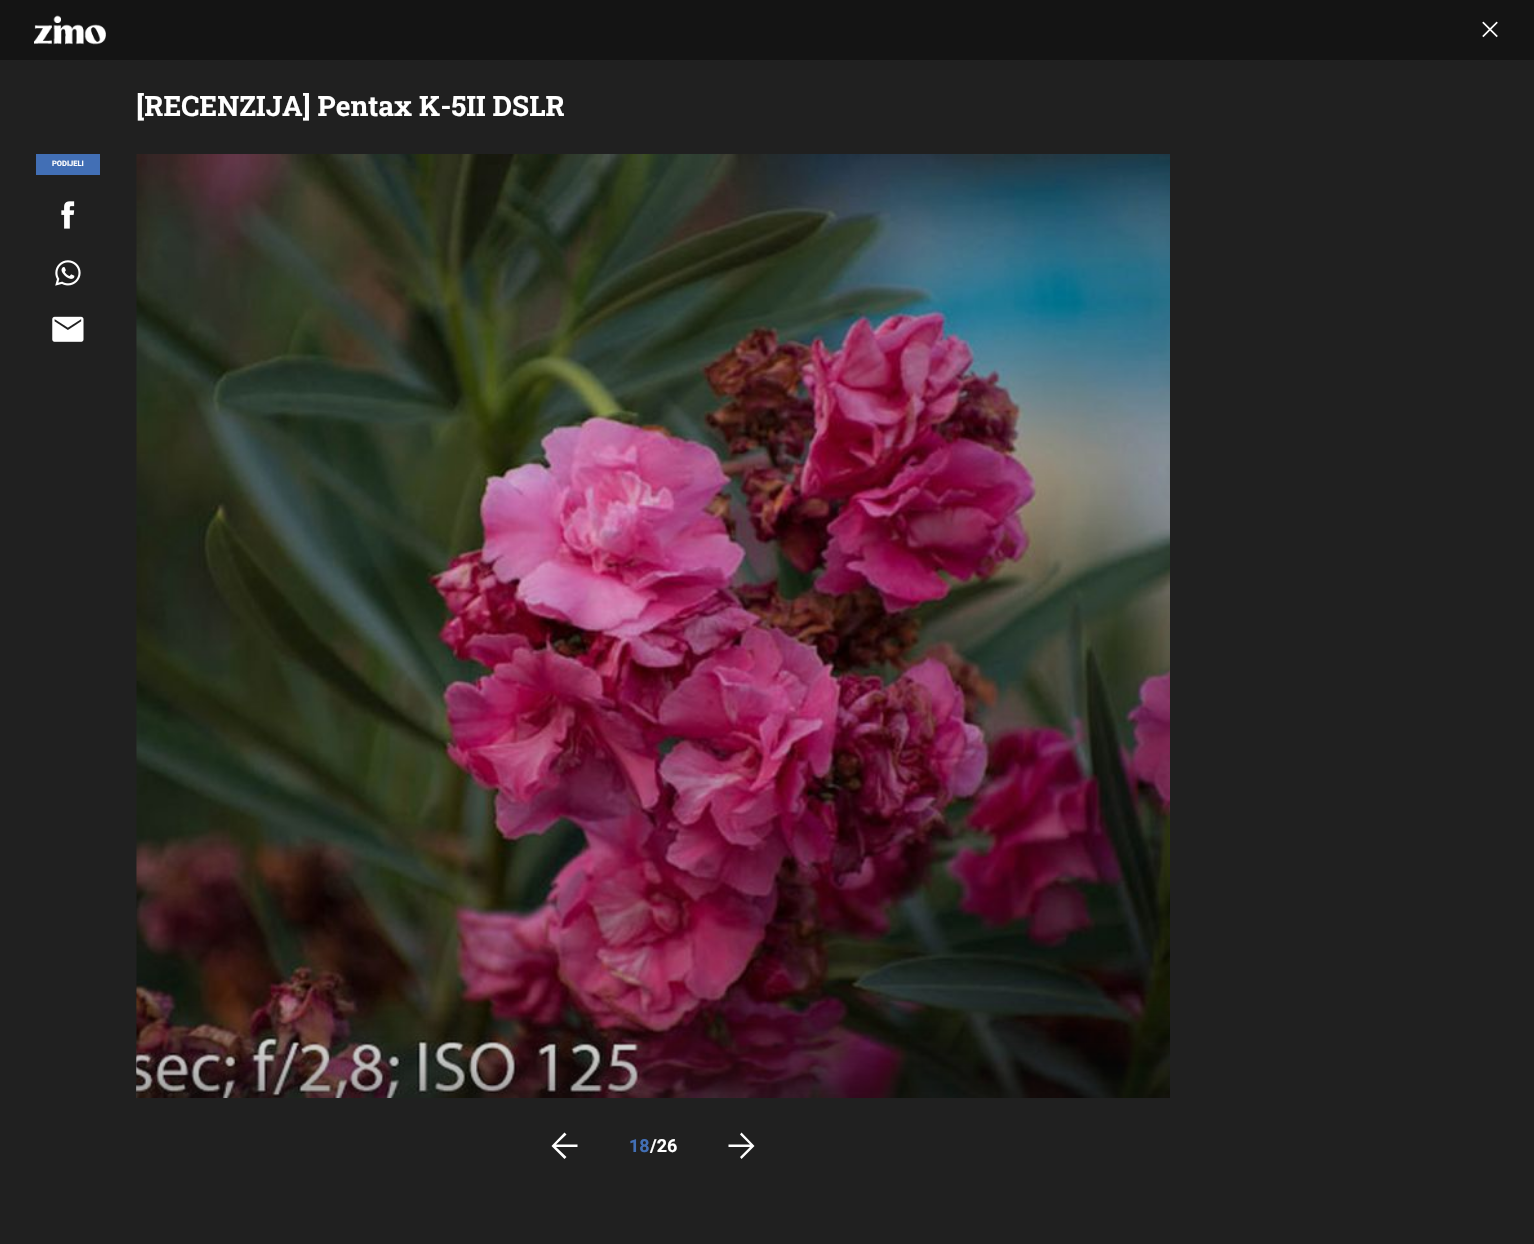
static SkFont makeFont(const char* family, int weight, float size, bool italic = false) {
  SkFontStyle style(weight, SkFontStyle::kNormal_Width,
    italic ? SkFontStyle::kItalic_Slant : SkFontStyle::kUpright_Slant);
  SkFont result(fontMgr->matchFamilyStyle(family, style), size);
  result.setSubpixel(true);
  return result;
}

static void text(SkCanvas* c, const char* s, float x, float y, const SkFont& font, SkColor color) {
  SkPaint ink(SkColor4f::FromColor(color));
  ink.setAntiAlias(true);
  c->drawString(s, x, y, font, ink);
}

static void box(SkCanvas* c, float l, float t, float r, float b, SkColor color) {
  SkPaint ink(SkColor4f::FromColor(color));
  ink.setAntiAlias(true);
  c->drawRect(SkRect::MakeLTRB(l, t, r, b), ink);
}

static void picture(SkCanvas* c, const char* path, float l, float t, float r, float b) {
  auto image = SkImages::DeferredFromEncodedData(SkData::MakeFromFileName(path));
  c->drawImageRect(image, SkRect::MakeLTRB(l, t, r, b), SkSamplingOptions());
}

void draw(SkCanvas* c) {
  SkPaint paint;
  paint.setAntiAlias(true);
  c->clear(0xff202020);
  box(c, 0, 0, 1534, 60, 0xff141414);
  picture(c, "img_01.png", 34, 15, 106, 45);
  picture(c, "img_02.png", 1482, 21, 1498, 38);
  SkFont face1 = makeFont("Roboto Slab", 700, 28);
  text(c, "[RECENZIJA] Pentax K-5II DSLR", 136, 116, face1, 0xffffffff);
  box(c, 36, 154, 100, 175, 0xff426fb5);
  SkFont face2 = makeFont("Roboto", 700, 7.5f);
  text(c, "PODIJELI", 52, 166, face2, 0xffffffff);
  picture(c, "img_03.png", 61, 201, 75, 229);
  picture(c, "img_04.png", 55, 260, 81, 286);
  picture(c, "img_05.png", 52, 316, 84, 342);
  picture(c, "img_06.png", 136, 154, 1170, 1098);
  paint.setColor(0xffffffff);
  c->drawPath(SkPathBuilder().moveTo(564.5f, 1159).lineTo(566.5f, 1157).lineTo(556, 1147).lineTo(577.5f, 1147).lineTo(577.5f, 1144.5f).lineTo(556, 1144.5f).lineTo(566.5f, 1134.5f).lineTo(564.5f, 1132.5f).lineTo(551.5f, 1146).close().detach(), paint);
  SkFont face3 = makeFont("Roboto", 700, 18);
  text(c, "18", 629, 1152, face3, 0xff426fb5);
  text(c, "/26", 650, 1152, face3, 0xffffffff);
  c->drawPath(SkPathBuilder().moveTo(741.5f, 1159).lineTo(740, 1157).lineTo(750, 1147).lineTo(728.5f, 1147).lineTo(728.5f, 1144.5f).lineTo(750, 1144.5f).lineTo(740, 1134.5f).lineTo(741.5f, 1132.5f).lineTo(754.5f, 1146).close().detach(), paint);
}
